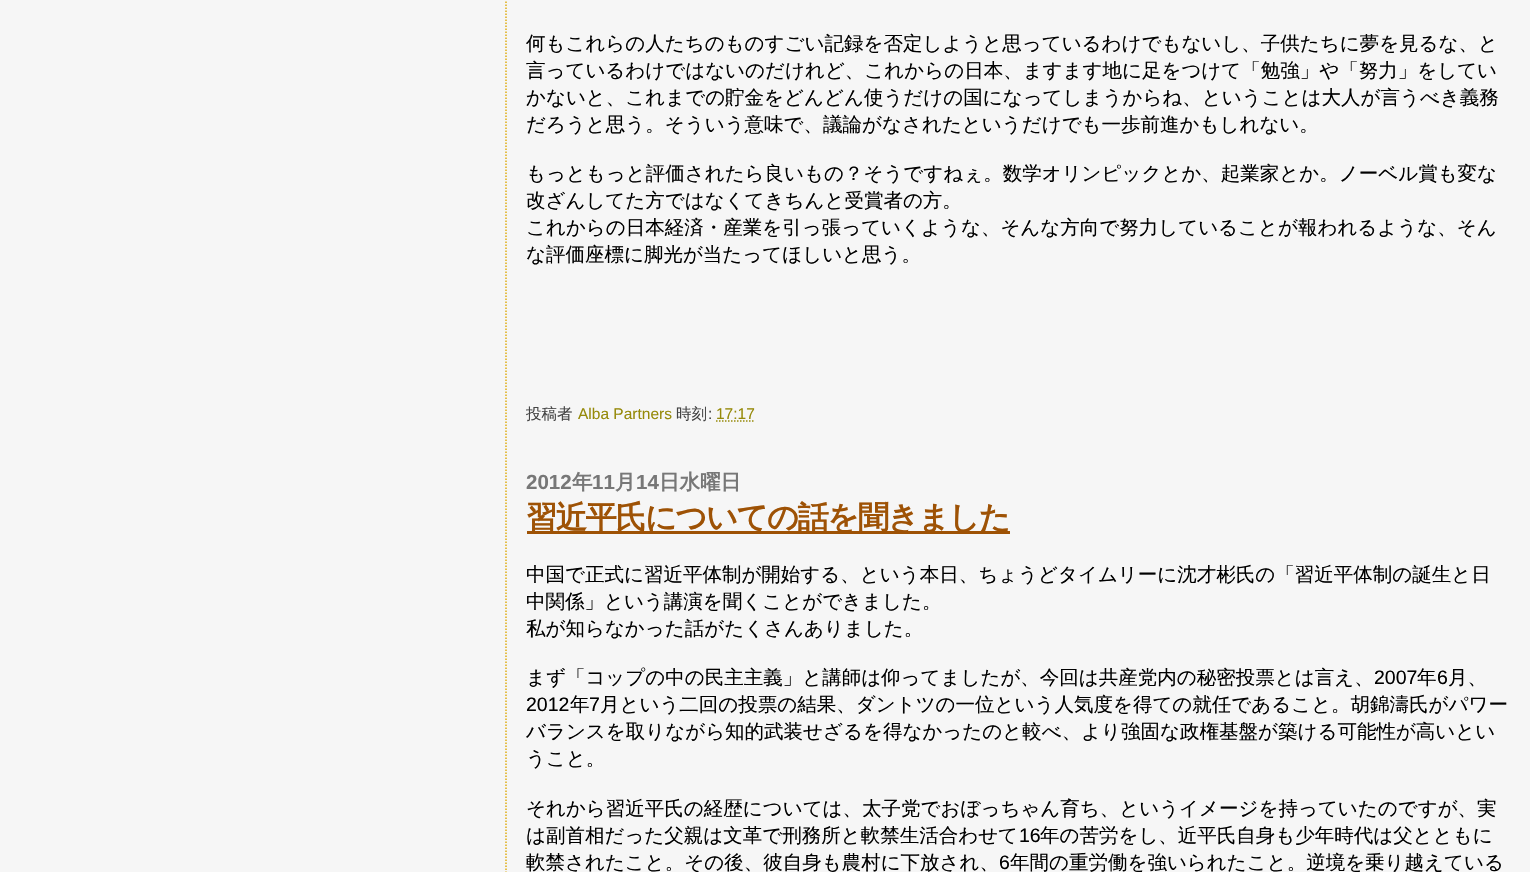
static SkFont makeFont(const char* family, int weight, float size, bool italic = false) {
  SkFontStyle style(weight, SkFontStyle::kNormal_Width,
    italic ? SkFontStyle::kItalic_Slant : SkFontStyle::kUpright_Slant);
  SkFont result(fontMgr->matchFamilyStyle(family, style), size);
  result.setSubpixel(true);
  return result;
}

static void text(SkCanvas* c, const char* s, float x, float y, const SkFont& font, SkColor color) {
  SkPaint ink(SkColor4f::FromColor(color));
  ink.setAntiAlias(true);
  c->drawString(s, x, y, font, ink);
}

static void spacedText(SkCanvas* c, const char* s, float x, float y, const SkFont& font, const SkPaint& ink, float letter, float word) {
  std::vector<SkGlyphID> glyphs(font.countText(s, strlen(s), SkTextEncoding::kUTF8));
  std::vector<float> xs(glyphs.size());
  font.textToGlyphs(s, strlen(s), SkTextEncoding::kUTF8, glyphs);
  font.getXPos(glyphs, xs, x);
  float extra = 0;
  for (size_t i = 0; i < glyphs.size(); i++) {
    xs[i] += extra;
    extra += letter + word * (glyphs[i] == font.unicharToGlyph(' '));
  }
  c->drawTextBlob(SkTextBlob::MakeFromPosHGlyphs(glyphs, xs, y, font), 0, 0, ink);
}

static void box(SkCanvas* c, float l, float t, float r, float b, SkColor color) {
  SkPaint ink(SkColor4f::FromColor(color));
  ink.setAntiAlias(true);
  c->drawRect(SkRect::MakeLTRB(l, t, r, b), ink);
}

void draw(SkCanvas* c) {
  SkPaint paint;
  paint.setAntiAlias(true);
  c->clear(0xfff6f6f6);
  paint.setStyle(SkPaint::kStroke_Style);
  paint.setStrokeWidth(1.5f);
  paint.setColor(0xffe0ad12);
  paint.setPathEffect(SkDashPathEffect::Make({{1.5f, 1.5f}}, 0));
  c->drawPath(SkPathBuilder().moveTo(506, -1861.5f).lineTo(506, 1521).detach(), paint);
  paint.setPathEffect(nullptr);
  SkFont face1 = makeFont("WenQuanYi Zen Hei", 500, 19.5f);
  text(c, "何もこれらの人たちのものすごい記録を否定しようと思っているわけでもないし、子供たちに夢を見るな、と", 526, 50, face1, 0xff000000);
  text(c, "言っているわけではないのだけれど、これからの日本、ますます地に足をつけて「勉強」や「努力」をしてい", 526, 77, face1, 0xff000000);
  text(c, "かないと、これまでの貯金をどんどん使うだけの国になってしまうからね、ということは大人が言うべき義務", 526, 104, face1, 0xff000000);
  text(c, "だろうと思う。そういう意味で、議論がなされたというだけでも一歩前進かもしれない。", 526, 131, face1, 0xff000000);
  text(c, "もっともっと評価されたら良いもの？そうですねぇ。数学オリンピックとか、起業家とか。ノーベル賞も変な", 526, 180, face1, 0xff000000);
  text(c, "改ざんしてた方ではなくてきちんと受賞者の方。", 526, 207, face1, 0xff000000);
  text(c, "これからの日本経済・産業を引っ張っていくような、そんな方向で努力していることが報われるような、そん", 526, 234, face1, 0xff000000);
  text(c, "な評価座標に脚光が当たってほしいと思う。", 526, 261, face1, 0xff000000);
  SkFont face2 = makeFont("WenQuanYi Zen Hei", 500, 15.5f);
  text(c, "投稿者", 526, 419, face2, 0xff444444);
  SkFont face3 = makeFont("Liberation Sans", 400, 15.5f);
  text(c, "Alba Partners", 578, 419, face3, 0xff968a0a);
  text(c, "時刻", 676, 419, face2, 0xff444444);
  text(c, ":", 708, 419, face3, 0xff444444);
  text(c, "17:17", 716, 419, face3, 0xff968a0a);
  paint.setColor(0xff968a0a);
  paint.setPathEffect(SkDashPathEffect::Make({{1.5f, 1.5f}}, 0));
  c->drawPath(SkPathBuilder().moveTo(716, 421).lineTo(755, 421).detach(), paint);
  paint.setPathEffect(nullptr);
  SkFont face4 = makeFont("Liberation Sans", 700, 20.5f);
  text(c, "2012", 526, 489, face4, 0xff777777);
  SkFont face5 = makeFont("WenQuanYi Zen Hei", 700, 20.5f);
  text(c, "年", 572, 489, face5, 0xff777777);
  text(c, "11", 592, 489, face4, 0xff777777);
  text(c, "月", 615, 489, face5, 0xff777777);
  text(c, "14", 636, 489, face4, 0xff777777);
  text(c, "日水曜日", 659, 489, face5, 0xff777777);
  box(c, 527, 531, 1010, 534, 0xff9e5205);
  SkFont face6 = makeFont("WenQuanYi Zen Hei", 700, 31.25f);
  paint.setStyle(SkPaint::kFill_Style);
  paint.setColor(0xff9e5205);
  spacedText(c, "習近平氏についての話を聞きました", 526, 528, face6, paint, -1.5f, 0);
  text(c, "中国で正式に習近平体制が開始する、という本日、ちょうどタイムリーに沈才彬氏の「習近平体制の誕生と日", 526, 581, face1, 0xff000000);
  text(c, "中関係」という講演を聞くことができました。", 526, 608, face1, 0xff000000);
  text(c, "私が知らなかった話がたくさんありました。", 526, 635, face1, 0xff000000);
  text(c, "まず「コップの中の民主主義」と講師は仰ってましたが、今回は共産党内の秘密投票とは言え、", 526, 684, face1, 0xff000000);
  SkFont face7 = makeFont("Liberation Sans", 400, 19.5f);
  text(c, "2007", 1374, 684, face7, 0xff000000);
  text(c, "年", 1417, 684, face1, 0xff000000);
  text(c, "6", 1437, 684, face7, 0xff000000);
  text(c, "月、", 1448, 684, face1, 0xff000000);
  text(c, "2012", 526, 711, face7, 0xff000000);
  text(c, "年", 570, 711, face1, 0xff000000);
  text(c, "7", 589, 711, face7, 0xff000000);
  text(c, "月という二回の投票の結果、ダントツの一位という人気度を得ての就任であること。胡錦濤氏がパワー", 600, 711, face1, 0xff000000);
  text(c, "バランスを取りながら知的武装せざるを得なかったのと較べ、より強固な政権基盤が築ける可能性が高いとい", 526, 738, face1, 0xff000000);
  text(c, "うこと。", 526, 765, face1, 0xff000000);
  text(c, "それから習近平氏の経歴については、太子党でおぼっちゃん育ち、というイメージを持っていたのですが、実", 526, 815, face1, 0xff000000);
  text(c, "は副首相だった父親は文革で刑務所と軟禁生活合わせて", 526, 842, face1, 0xff000000);
  text(c, "16", 1019, 842, face7, 0xff000000);
  text(c, "年の苦労をし、近平氏自身も少年時代は父とともに", 1040, 842, face1, 0xff000000);
  text(c, "軟禁されたこと。その後、彼自身も農村に下放され、", 526, 869, face1, 0xff000000);
  text(c, "6", 999, 869, face7, 0xff000000);
  text(c, "年間の重労働を強いられたこと。逆境を乗り越えている", 1010, 869, face1, 0xff000000);
}
